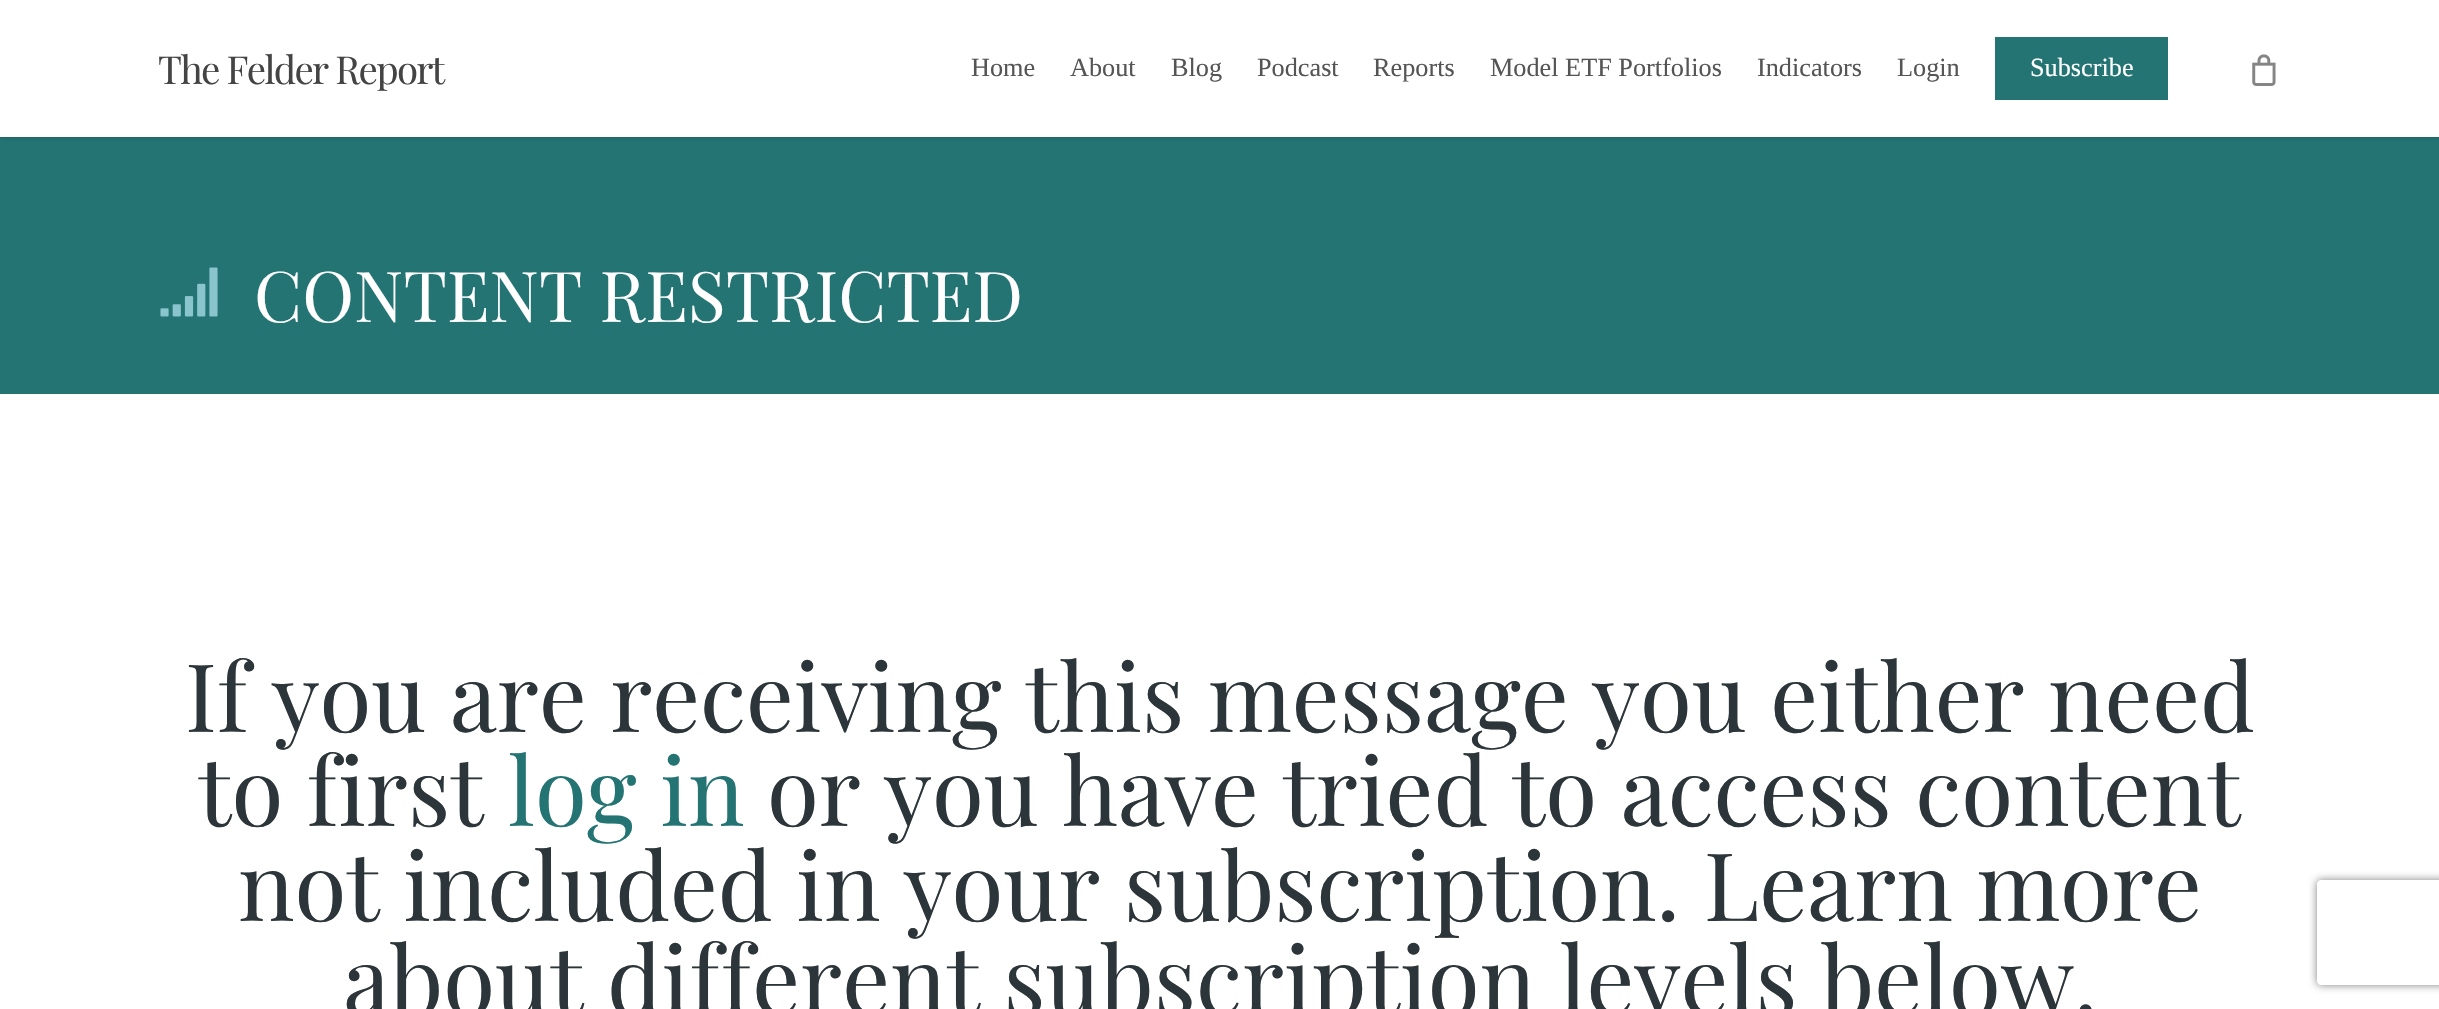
static SkFont makeFont(const char* family, int weight, float size, bool italic = false) {
  SkFontStyle style(weight, SkFontStyle::kNormal_Width,
    italic ? SkFontStyle::kItalic_Slant : SkFontStyle::kUpright_Slant);
  SkFont result(fontMgr->matchFamilyStyle(family, style), size);
  result.setSubpixel(true);
  return result;
}

static void text(SkCanvas* c, const char* s, float x, float y, const SkFont& font, SkColor color) {
  SkPaint ink(SkColor4f::FromColor(color));
  ink.setAntiAlias(true);
  c->drawString(s, x, y, font, ink);
}

static void spacedText(SkCanvas* c, const char* s, float x, float y, const SkFont& font, const SkPaint& ink, float letter, float word) {
  std::vector<SkGlyphID> glyphs(font.countText(s, strlen(s), SkTextEncoding::kUTF8));
  std::vector<float> xs(glyphs.size());
  font.textToGlyphs(s, strlen(s), SkTextEncoding::kUTF8, glyphs);
  font.getXPos(glyphs, xs, x);
  float extra = 0;
  for (size_t i = 0; i < glyphs.size(); i++) {
    xs[i] += extra;
    extra += letter + word * (glyphs[i] == font.unicharToGlyph(' '));
  }
  c->drawTextBlob(SkTextBlob::MakeFromPosHGlyphs(glyphs, xs, y, font), 0, 0, ink);
}

static void box(SkCanvas* c, float l, float t, float r, float b, SkColor color) {
  SkPaint ink(SkColor4f::FromColor(color));
  ink.setAntiAlias(true);
  c->drawRect(SkRect::MakeLTRB(l, t, r, b), ink);
}

static void picture(SkCanvas* c, const char* path, float l, float t, float r, float b) {
  auto image = SkImages::DeferredFromEncodedData(SkData::MakeFromFileName(path));
  c->drawImageRect(image, SkRect::MakeLTRB(l, t, r, b), SkSamplingOptions());
}

void draw(SkCanvas* c) {
  SkPaint paint;
  paint.setAntiAlias(true);
  c->clear(0xffffffff);
  box(c, 0, 137, 2439, 394, 0xff247474);
  paint.setColor(0x38000000);
  paint.setMaskFilter(SkMaskFilter::MakeBlur(kNormal_SkBlurStyle, 2.5f));
  c->drawRect(SkRect::MakeLTRB(0, 0, 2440, 137), paint);
  paint.setMaskFilter(nullptr);
  box(c, 0, 0, 2439, 137, 0xffffffff);
  SkFont face1 = makeFont("Playfair Display", 400, 38.5f);
  paint.setColor(0xff444444);
  spacedText(c, "The Felder Report", 158, 84, face1, paint, -1.75f, 0);
  SkFont face2 = makeFont("Liberation Serif", 400, 26.25f);
  text(c, "Home", 971, 76, face2, 0xff555555);
  text(c, "About", 1070, 76, face2, 0xff555555);
  text(c, "Blog", 1171, 76, face2, 0xff555555);
  text(c, "Podcast", 1257, 76, face2, 0xff555555);
  text(c, "Reports", 1373, 76, face2, 0xff555555);
  text(c, "Model ETF Portfolios", 1490, 76, face2, 0xff555555);
  text(c, "Indicators", 1757, 76, face2, 0xff555555);
  text(c, "Login", 1897, 76, face2, 0xff555555);
  box(c, 1995, 37, 2168, 100, 0xff247474);
  text(c, "Subscribe", 2030, 76, face2, 0xffffffff);
  picture(c, "img_01.png", 2252, 54, 2276, 86);
  picture(c, "img_02.png", 160, 267, 218, 317);
  SkFont face3 = makeFont("Playfair Display", 400, 70);
  text(c, "CONTENT RESTRICTED", 254, 322, face3, 0xffffffff);
  SkFont face4 = makeFont("Playfair Display", 400, 94.5f);
  text(c, "If you are receiving this message you either need", 185, 732, face4, 0xff2c3539);
  text(c, "to first", 198, 826, face4, 0xff2c3539);
  text(c, "log in", 508, 826, face4, 0xff247474);
  text(c, "or you have tried to access content", 767, 826, face4, 0xff2c3539);
  text(c, "not included in your subscription. Learn more", 238, 921, face4, 0xff2c3539);
  text(c, "about different subscription levels below.", 343, 1015, face4, 0xff2c3539);
  c->save();
  c->clipPath(SkPathBuilder(SkPathFillType::kEvenOdd).moveTo(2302, 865).lineTo(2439, 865).lineTo(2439, 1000).lineTo(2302, 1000).close().moveTo(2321, 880).lineTo(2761, 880).cubicTo(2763, 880, 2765, 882, 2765, 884).lineTo(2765, 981).cubicTo(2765, 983, 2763, 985, 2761, 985).lineTo(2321, 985).cubicTo(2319, 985, 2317, 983, 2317, 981).lineTo(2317, 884).cubicTo(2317, 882, 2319, 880, 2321, 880).close().detach(), true);
  paint.setColor(0xff808080);
  paint.setMaskFilter(SkMaskFilter::MakeBlur(kNormal_SkBlurStyle, 4.5f));
  c->drawRoundRect(SkRect::MakeLTRB(2317, 880, 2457, 985), 4, 4, paint);
  paint.setMaskFilter(nullptr);
  c->restore();
}
